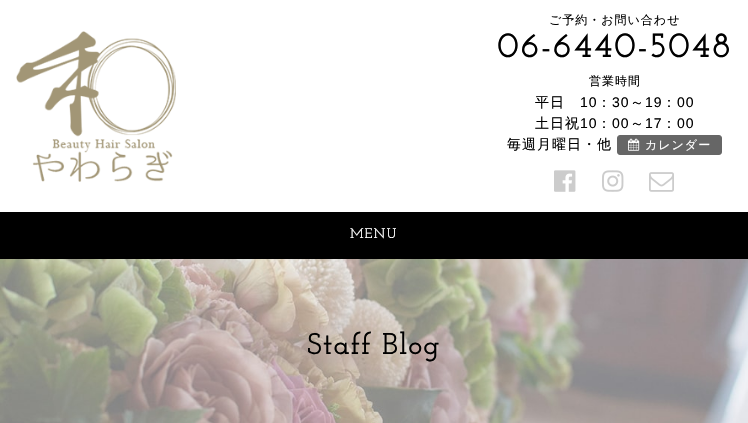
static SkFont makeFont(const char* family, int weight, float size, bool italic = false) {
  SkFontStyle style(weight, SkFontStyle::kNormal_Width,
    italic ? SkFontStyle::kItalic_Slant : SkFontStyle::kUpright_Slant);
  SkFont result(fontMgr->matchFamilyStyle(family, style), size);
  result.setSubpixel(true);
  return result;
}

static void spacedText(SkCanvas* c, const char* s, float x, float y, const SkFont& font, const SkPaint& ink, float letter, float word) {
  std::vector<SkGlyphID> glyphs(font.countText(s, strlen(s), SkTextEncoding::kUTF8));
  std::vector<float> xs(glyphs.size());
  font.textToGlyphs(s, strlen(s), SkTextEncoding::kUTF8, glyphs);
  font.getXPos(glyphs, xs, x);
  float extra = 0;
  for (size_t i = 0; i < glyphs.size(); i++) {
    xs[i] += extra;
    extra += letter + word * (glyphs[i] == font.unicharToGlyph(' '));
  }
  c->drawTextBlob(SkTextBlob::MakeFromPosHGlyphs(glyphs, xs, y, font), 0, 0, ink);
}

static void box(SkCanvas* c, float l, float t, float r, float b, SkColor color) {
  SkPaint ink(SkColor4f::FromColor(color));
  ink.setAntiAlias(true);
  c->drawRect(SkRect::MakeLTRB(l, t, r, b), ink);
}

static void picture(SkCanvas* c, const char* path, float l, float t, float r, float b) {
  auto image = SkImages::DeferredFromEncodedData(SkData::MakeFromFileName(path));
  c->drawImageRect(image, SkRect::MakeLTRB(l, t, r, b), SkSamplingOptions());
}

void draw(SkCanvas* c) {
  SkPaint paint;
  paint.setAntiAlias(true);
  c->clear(0xffffffff);
  picture(c, "img_01.png", 16, 31, 176, 182);
  SkFont face1 = makeFont("WenQuanYi Zen Hei", 500, 12);
  paint.setColor(0xff000000);
  spacedText(c, "ご予約・お問い合わせ", 549, 24, face1, paint, 1, 0);
  SkFont face2 = makeFont("Josefin Slab", 600, 36);
  spacedText(c, "06-6440-5048", 497, 57, face2, paint, 1, 0);
  spacedText(c, "営業時間", 589, 85, face1, paint, 1, 0);
  SkFont face3 = makeFont("WenQuanYi Zen Hei", 500, 14);
  spacedText(c, "平日", 535, 107, face3, paint, 1, 0);
  SkFont face4 = makeFont("Liberation Sans", 400, 14);
  spacedText(c, "10", 580, 107, face4, paint, 1, 0);
  spacedText(c, "：", 597, 107, face3, paint, 1, 0);
  spacedText(c, "30", 612, 107, face4, paint, 1, 0);
  spacedText(c, "～", 630, 107, face3, paint, 1, 0);
  spacedText(c, "19", 645, 107, face4, paint, 1, 0);
  spacedText(c, "：", 662, 107, face3, paint, 1, 0);
  spacedText(c, "00", 677, 107, face4, paint, 1, 0);
  spacedText(c, "土日祝", 535, 128, face3, paint, 1, 0);
  spacedText(c, "10", 580, 128, face4, paint, 1, 0);
  spacedText(c, "：", 597, 128, face3, paint, 1, 0);
  spacedText(c, "00", 612, 128, face4, paint, 1, 0);
  spacedText(c, "～", 630, 128, face3, paint, 1, 0);
  spacedText(c, "17", 645, 128, face4, paint, 1, 0);
  spacedText(c, "：", 662, 128, face3, paint, 1, 0);
  spacedText(c, "00", 677, 128, face4, paint, 1, 0);
  spacedText(c, "毎週月曜日・他", 507, 149, face3, paint, 1, 0);
  paint.setColor(0xff666666);
  c->drawRoundRect(SkRect::MakeLTRB(617.5f, 135.5f, 721.5f, 154.5f), 2.5f, 2.5f, paint);
  paint.setStyle(SkPaint::kStroke_Style);
  paint.setStrokeWidth(1);
  c->drawRoundRect(SkRect::MakeLTRB(617.5f, 135.5f, 721.5f, 154.5f), 2.5f, 2.5f, paint);
  picture(c, "img_02.png", 628, 138, 640, 151);
  paint.setStyle(SkPaint::kFill_Style);
  paint.setColor(0xffffffff);
  spacedText(c, "カレンダー", 645, 149, face1, paint, 1, 0);
  picture(c, "img_03.png", 554, 170, 576, 192);
  picture(c, "img_04.png", 602, 170, 624, 192);
  picture(c, "img_05.png", 649, 172, 674, 192);
  box(c, 0, 212, 748, 259, 0xff000000);
  SkFont face5 = makeFont("Josefin Slab", 600, 14);
  spacedText(c, "MENU", 350, 238, face5, paint, 1, 0);
  picture(c, "img_06.png", 0, 259, 748, 423);
  SkFont face6 = makeFont("Josefin Slab", 600, 30);
  paint.setColor(0xff000000);
  spacedText(c, "Staff Blog", 307, 354, face6, paint, 1, 0);
}
